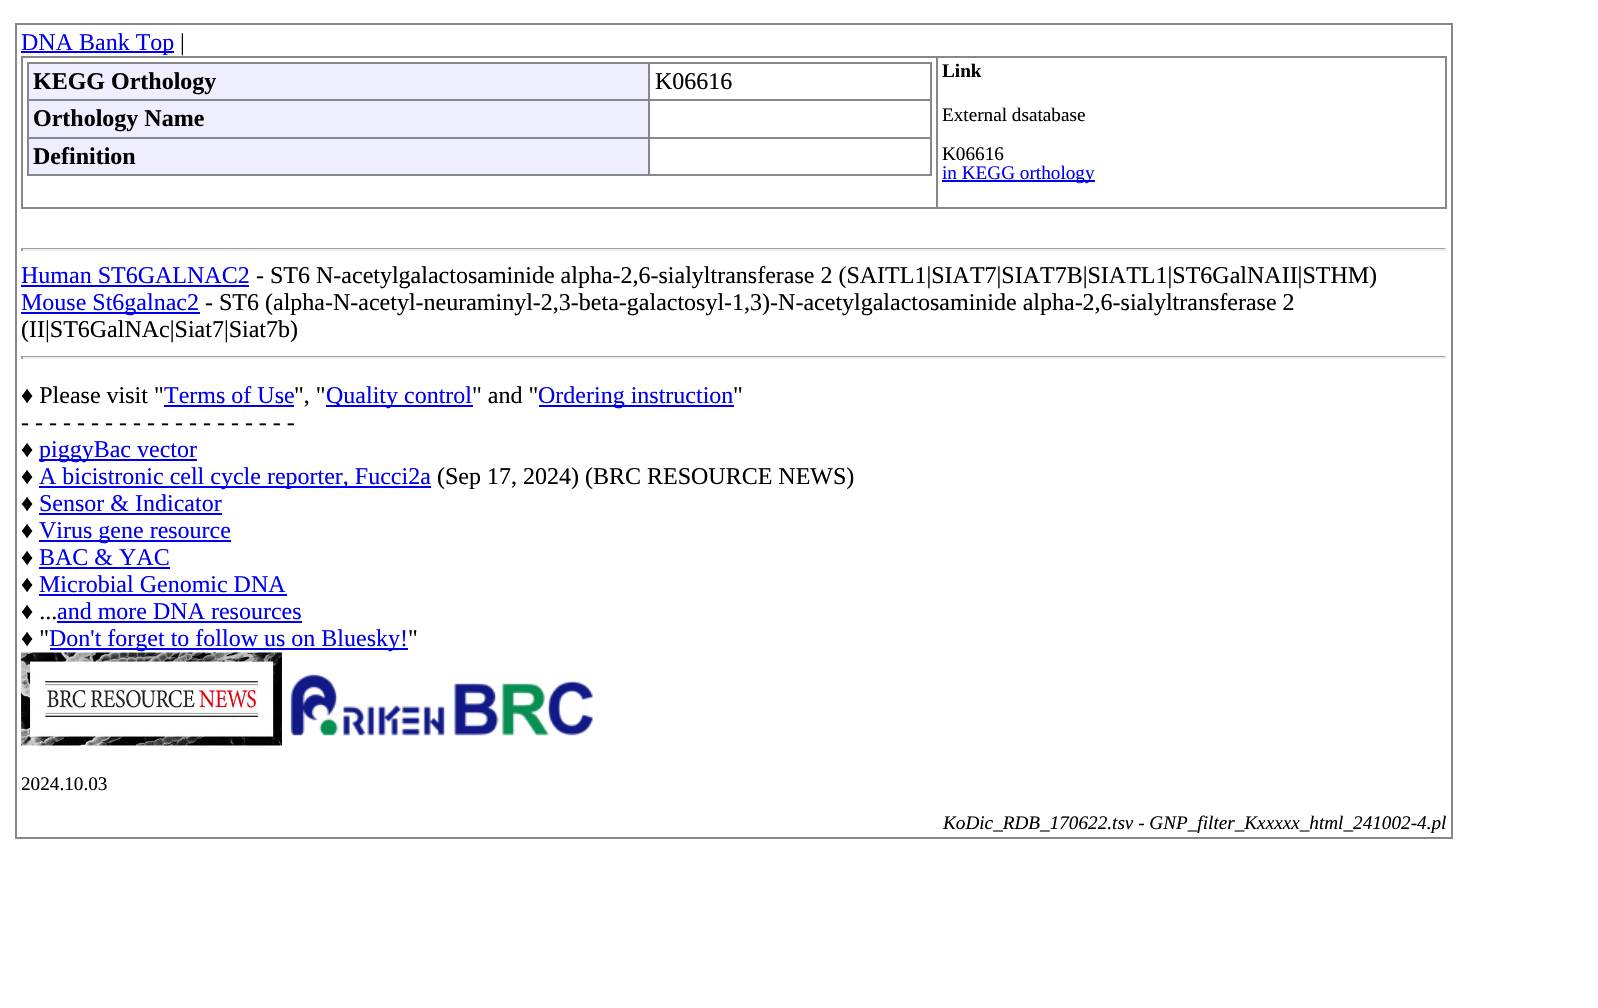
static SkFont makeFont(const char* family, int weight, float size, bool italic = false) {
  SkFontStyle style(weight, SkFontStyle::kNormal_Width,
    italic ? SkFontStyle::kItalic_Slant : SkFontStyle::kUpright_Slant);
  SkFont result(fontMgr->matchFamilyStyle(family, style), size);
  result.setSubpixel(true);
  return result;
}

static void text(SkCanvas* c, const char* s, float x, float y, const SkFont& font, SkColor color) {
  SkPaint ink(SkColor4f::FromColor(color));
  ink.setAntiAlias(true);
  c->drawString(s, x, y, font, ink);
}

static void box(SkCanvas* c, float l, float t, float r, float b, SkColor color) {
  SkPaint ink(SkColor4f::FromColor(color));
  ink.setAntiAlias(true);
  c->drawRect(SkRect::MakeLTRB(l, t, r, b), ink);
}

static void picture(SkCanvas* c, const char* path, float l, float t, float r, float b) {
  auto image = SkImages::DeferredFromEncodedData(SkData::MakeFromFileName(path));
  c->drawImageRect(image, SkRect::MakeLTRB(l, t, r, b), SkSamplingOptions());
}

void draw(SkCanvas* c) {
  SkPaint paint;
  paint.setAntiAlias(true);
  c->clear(0xffffffff);
  box(c, 15, 23, 1452, 25, 0xff888888);
  box(c, 1451, 23, 1453, 839, 0xff888888);
  box(c, 15, 837, 1452, 839, 0xff888888);
  box(c, 15, 23, 17, 839, 0xff888888);
  box(c, 21, 51, 174, 53, 0xff0000ee);
  SkFont face1 = makeFont("Liberation Serif", 400, 24);
  text(c, "DNA Bank Top", 21, 50, face1, 0xff0000ee);
  text(c, "|", 180, 50, face1, 0xff000000);
  box(c, 21, 56, 1446, 58, 0xff888888);
  box(c, 1445, 56, 1447, 209, 0xff888888);
  box(c, 21, 207, 1446, 209, 0xff888888);
  box(c, 21, 56, 23, 209, 0xff888888);
  box(c, 27, 62, 932, 64, 0xff888888);
  box(c, 930, 62, 932, 176, 0xff888888);
  box(c, 27, 174, 932, 176, 0xff888888);
  box(c, 27, 62, 29, 176, 0xff888888);
  box(c, 29, 64, 648, 99, 0xffeeeeff);
  SkFont face2 = makeFont("Liberation Serif", 700, 24);
  text(c, "KEGG Orthology", 33, 89, face2, 0xff000000);
  box(c, 648, 99, 932, 101, 0xff888888);
  box(c, 648, 137, 932, 139, 0xff888888);
  box(c, 648, 137, 650, 176, 0xff888888);
  box(c, 27, 137, 650, 139, 0xff888888);
  box(c, 648, 99, 650, 138, 0xff888888);
  box(c, 27, 99, 650, 101, 0xff888888);
  box(c, 648, 62, 650, 101, 0xff888888);
  text(c, "K06616", 655, 89, face1, 0xff000000);
  box(c, 29, 101, 648, 137, 0xffeeeeff);
  text(c, "Orthology Name", 33, 126, face2, 0xff000000);
  box(c, 29, 139, 648, 174, 0xffeeeeff);
  text(c, "Definition", 33, 164, face2, 0xff000000);
  box(c, 936, 56, 938, 209, 0xff888888);
  SkFont face3 = makeFont("Liberation Serif", 700, 19.2f);
  text(c, "Link", 942, 77, face3, 0xff000000);
  SkFont face4 = makeFont("Liberation Serif", 400, 19.2f);
  text(c, "External dsatabase", 942, 121, face4, 0xff000000);
  text(c, "K06616", 942, 160, face4, 0xff000000);
  box(c, 942, 180, 1095, 182, 0xff0000ee);
  text(c, "in KEGG orthology", 942, 179, face4, 0xff0000ee);
  box(c, 21, 248, 1446, 249, 0xff9f9f9f);
  box(c, 1445, 248, 1447, 251, 0xffeeeeee);
  box(c, 21, 249, 1446, 251, 0xffeeeeee);
  box(c, 21, 248, 23, 251, 0xff9f9f9f);
  text(c, "Human ST6GALNAC2", 21, 283, face1, 0xff0000ee);
  box(c, 21, 285, 249, 287, 0xff0000ee);
  text(c, "- ST6 N-acetylgalactosaminide alpha-2,6-sialyltransferase 2 (SAITL1|SIAT7|SIAT7B|SIATL1|ST6GalNAII|STHM)", 256, 283, face1, 0xff000000);
  box(c, 21, 312, 200, 314, 0xff0000ee);
  text(c, "Mouse St6galnac2", 21, 310, face1, 0xff0000ee);
  text(c, "- ST6 (alpha-N-acetyl-neuraminyl-2,3-beta-galactosyl-1,3)-N-acetylgalactosaminide alpha-2,6-sialyltransferase 2", 205, 310, face1, 0xff000000);
  text(c, "(II|ST6GalNAc|Siat7|Siat7b)", 21, 337, face1, 0xff000000);
  box(c, 21, 356, 1446, 357, 0xff9f9f9f);
  box(c, 1445, 356, 1447, 359, 0xffeeeeee);
  box(c, 21, 357, 1446, 359, 0xffeeeeee);
  box(c, 21, 356, 23, 359, 0xff9f9f9f);
  text(c, "♦ Please visit \"", 21, 403, face1, 0xff000000);
  text(c, "Terms of Use", 164, 403, face1, 0xff0000ee);
  box(c, 164, 405, 294, 407, 0xff0000ee);
  text(c, "\", \"", 294, 403, face1, 0xff000000);
  box(c, 326, 405, 473, 407, 0xff0000ee);
  text(c, "Quality control", 326, 403, face1, 0xff0000ee);
  text(c, "\" and \"", 472, 403, face1, 0xff000000);
  box(c, 539, 405, 734, 407, 0xff0000ee);
  text(c, "Ordering instruction", 538, 403, face1, 0xff0000ee);
  text(c, "\"", 733, 403, face1, 0xff000000);
  text(c, "- - - - - - - - - - - - - - - - - - - -", 21, 430, face1, 0xff000000);
  text(c, "♦", 21, 457, face1, 0xff000000);
  box(c, 39, 459, 197, 461, 0xff0000ee);
  text(c, "piggyBac vector", 39, 457, face1, 0xff0000ee);
  text(c, "♦", 21, 484, face1, 0xff000000);
  box(c, 39, 486, 431, 488, 0xff0000ee);
  text(c, "A bicistronic cell cycle reporter, Fucci2a", 39, 484, face1, 0xff0000ee);
  text(c, "(Sep 17, 2024) (BRC RESOURCE NEWS)", 437, 484, face1, 0xff000000);
  text(c, "♦", 21, 511, face1, 0xff000000);
  text(c, "Sensor & Indicator", 39, 511, face1, 0xff0000ee);
  box(c, 39, 513, 222, 515, 0xff0000ee);
  text(c, "♦", 21, 538, face1, 0xff000000);
  box(c, 39, 540, 231, 542, 0xff0000ee);
  text(c, "Virus gene resource", 39, 538, face1, 0xff0000ee);
  text(c, "♦", 21, 565, face1, 0xff000000);
  text(c, "BAC & YAC", 39, 565, face1, 0xff0000ee);
  box(c, 39, 567, 170, 569, 0xff0000ee);
  text(c, "♦", 21, 592, face1, 0xff000000);
  text(c, "Microbial Genomic DNA", 39, 592, face1, 0xff0000ee);
  box(c, 39, 594, 287, 596, 0xff0000ee);
  text(c, "♦ ...", 21, 619, face1, 0xff000000);
  text(c, "and more DNA resources", 57, 619, face1, 0xff0000ee);
  box(c, 57, 621, 302, 623, 0xff0000ee);
  text(c, "♦ \"", 21, 646, face1, 0xff000000);
  box(c, 50, 648, 408, 650, 0xff0000ee);
  text(c, "Don't forget to follow us on Bluesky!", 49, 646, face1, 0xff0000ee);
  text(c, "\"", 408, 646, face1, 0xff000000);
  picture(c, "img_01.png", 21, 652, 282, 746);
  picture(c, "img_02.png", 290, 674, 593, 736);
  text(c, "2024.10.03", 21, 790, face4, 0xff000000);
  SkFont face5 = makeFont("Liberation Serif", 400, 19.2f, true);
  text(c, "KoDic_RDB_170622.tsv - GNP_filter_Kxxxxx_html_241002-4.pl", 943, 829, face5, 0xff000000);
}
